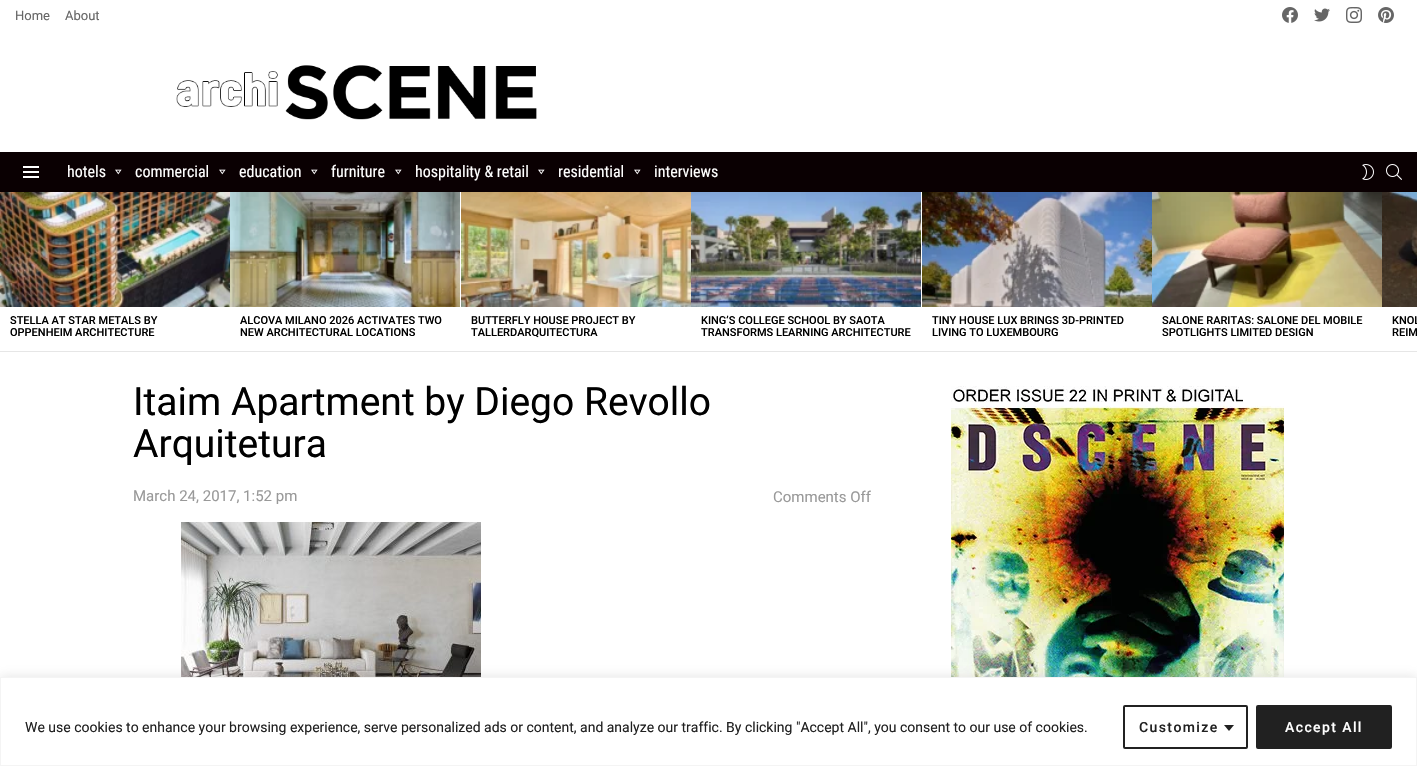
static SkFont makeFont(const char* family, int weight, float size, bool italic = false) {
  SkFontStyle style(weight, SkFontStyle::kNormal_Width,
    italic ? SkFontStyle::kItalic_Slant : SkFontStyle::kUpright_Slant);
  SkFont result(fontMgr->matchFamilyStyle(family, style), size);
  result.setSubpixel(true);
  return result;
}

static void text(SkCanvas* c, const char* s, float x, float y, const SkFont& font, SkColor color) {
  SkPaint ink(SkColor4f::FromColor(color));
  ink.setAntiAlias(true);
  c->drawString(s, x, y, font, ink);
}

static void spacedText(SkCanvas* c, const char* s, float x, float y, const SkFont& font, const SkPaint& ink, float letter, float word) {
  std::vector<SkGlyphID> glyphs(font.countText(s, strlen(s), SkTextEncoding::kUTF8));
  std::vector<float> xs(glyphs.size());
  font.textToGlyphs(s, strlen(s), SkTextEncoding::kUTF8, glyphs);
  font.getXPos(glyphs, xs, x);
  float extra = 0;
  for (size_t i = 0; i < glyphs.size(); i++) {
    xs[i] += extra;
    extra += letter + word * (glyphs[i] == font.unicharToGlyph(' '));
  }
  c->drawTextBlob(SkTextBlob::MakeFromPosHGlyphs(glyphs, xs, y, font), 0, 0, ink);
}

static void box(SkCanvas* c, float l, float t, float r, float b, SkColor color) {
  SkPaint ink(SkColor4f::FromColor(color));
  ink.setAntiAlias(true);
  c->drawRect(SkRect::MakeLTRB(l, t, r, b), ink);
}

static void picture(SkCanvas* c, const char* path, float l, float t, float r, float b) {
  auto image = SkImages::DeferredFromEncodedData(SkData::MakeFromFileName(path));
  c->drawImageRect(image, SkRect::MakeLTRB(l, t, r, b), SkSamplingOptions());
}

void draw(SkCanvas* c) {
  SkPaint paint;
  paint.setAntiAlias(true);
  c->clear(0xffffffff);
  SkFont face1 = makeFont("Roboto", 400, 13);
  text(c, "Home", 15, 20, face1, 0xff666666);
  text(c, "About", 65, 20, face1, 0xff666666);
  picture(c, "img_01.png", 1282, 7, 1298, 23);
  picture(c, "img_02.png", 1314, 8, 1330, 22);
  picture(c, "img_03.png", 1346, 7, 1362, 23);
  picture(c, "img_04.png", 1378, 7, 1394, 23);
  picture(c, "img_05.png", 176, 65, 537, 120);
  box(c, 0, 152, 1417, 192, 0xff0a0002);
  picture(c, "img_06.png", 23, 166, 39, 178);
  SkFont face2 = makeFont("Roboto Condensed", 400, 16);
  text(c, "hotels", 67, 177, face2, 0xffffffff);
  picture(c, "img_07.png", 115, 169, 122, 175);
  text(c, "commercial", 135, 177, face2, 0xffffffff);
  picture(c, "img_07.png", 219, 169, 226, 175);
  text(c, "education", 239, 177, face2, 0xffffffff);
  picture(c, "img_07.png", 311, 169, 318, 175);
  text(c, "furniture", 331, 177, face2, 0xffffffff);
  picture(c, "img_07.png", 395, 169, 402, 175);
  text(c, "hospitality & retail", 415, 177, face2, 0xffffffff);
  picture(c, "img_07.png", 538, 169, 545, 175);
  text(c, "residential", 558, 177, face2, 0xffffffff);
  picture(c, "img_07.png", 634, 169, 641, 175);
  text(c, "interviews", 654, 177, face2, 0xffffffff);
  picture(c, "img_08.png", 1362, 164, 1374, 180);
  picture(c, "img_09.png", 1386, 164, 1402, 180);
  box(c, 0, 351, 1417, 352, 0xffe6e6e6);
  picture(c, "img_10.png", 0, 192, 230, 307);
  SkFont face3 = makeFont("Roboto", 500, 11);
  text(c, "STELLA AT STAR METALS BY", 10, 324, face3, 0xff000000);
  text(c, "OPPENHEIM ARCHITECTURE", 10, 336, face3, 0xff000000);
  picture(c, "img_11.png", 230, 192, 460, 307);
  text(c, "ALCOVA MILANO 2026 ACTIVATES TWO", 240, 324, face3, 0xff000000);
  text(c, "NEW ARCHITECTURAL LOCATIONS", 240, 336, face3, 0xff000000);
  picture(c, "img_12.png", 461, 192, 691, 307);
  text(c, "BUTTERFLY HOUSE PROJECT BY", 471, 324, face3, 0xff000000);
  text(c, "TALLERDARQUITECTURA", 471, 336, face3, 0xff000000);
  picture(c, "img_13.png", 691, 192, 921, 307);
  text(c, "KING’S COLLEGE SCHOOL BY SAOTA", 701, 324, face3, 0xff000000);
  text(c, "TRANSFORMS LEARNING ARCHITECTURE", 701, 336, face3, 0xff000000);
  picture(c, "img_14.png", 922, 192, 1152, 307);
  text(c, "TINY HOUSE LUX BRINGS 3D-PRINTED", 932, 324, face3, 0xff000000);
  text(c, "LIVING TO LUXEMBOURG", 932, 336, face3, 0xff000000);
  picture(c, "img_15.png", 1152, 192, 1382, 307);
  text(c, "SALONE RARITAS: SALONE DEL MOBILE", 1162, 324, face3, 0xff000000);
  text(c, "SPOTLIGHTS LIMITED DESIGN", 1162, 336, face3, 0xff000000);
  picture(c, "img_16.png", 1382, 192, 1417, 307);
  text(c, "KNOL", 1392, 324, face3, 0xff000000);
  text(c, "REIM", 1392, 336, face3, 0xff000000);
  SkFont face4 = makeFont("Roboto", 400, 39);
  text(c, "Itaim Apartment by Diego Revollo", 133, 415, face4, 0xff000000);
  text(c, "Arquitetura", 133, 457, face4, 0xff000000);
  SkFont face5 = makeFont("Roboto", 400, 15);
  text(c, "March 24, 2017, 1:52 pm", 133, 501, face5, 0xff999999);
  text(c, "Comments Off", 773, 502, face5, 0xff999999);
  picture(c, "img_17.png", 181, 522, 481, 677);
  picture(c, "img_18.png", 951, 386, 1284, 677);
  paint.setColor(0x4dacabab);
  paint.setMaskFilter(SkMaskFilter::MakeBlur(kNormal_SkBlurStyle, 5));
  c->drawRect(SkRect::MakeLTRB(0, 676, 1417, 765), paint);
  paint.setMaskFilter(nullptr);
  paint.setColor(0xffffffff);
  c->drawRect(SkRect::MakeLTRB(0.5f, 677.5f, 1416.5f, 765.5f), paint);
  paint.setStyle(SkPaint::kStroke_Style);
  paint.setStrokeWidth(1);
  paint.setColor(0xfff4f4f4);
  c->drawRect(SkRect::MakeLTRB(0.5f, 677.5f, 1416.5f, 765.5f), paint);
  SkFont face6 = makeFont("Roboto", 400, 14);
  text(c, "We use cookies to enhance your browsing experience, serve personalized ads or content, and analyze our traffic. By clicking \"Accept All\", you consent to our use of cookies.", 25, 732, face6, 0xff212121);
  paint.setStrokeWidth(2);
  paint.setColor(0xff212121);
  c->drawRoundRect(SkRect::MakeLTRB(1124, 706, 1247, 748), 1, 1, paint);
  SkFont face7 = makeFont("Roboto", 500, 14);
  paint.setStyle(SkPaint::kFill_Style);
  spacedText(c, "Customize", 1139, 732, face7, paint, 1.4f, 0);
  c->drawPath(SkPathBuilder().moveTo(1224, 725).lineTo(1234, 725).lineTo(1229, 731).close().detach(), paint);
  c->drawRoundRect(SkRect::MakeLTRB(1257, 706, 1391, 748), 1, 1, paint);
  paint.setStyle(SkPaint::kStroke_Style);
  c->drawRoundRect(SkRect::MakeLTRB(1257, 706, 1391, 748), 1, 1, paint);
  paint.setStyle(SkPaint::kFill_Style);
  paint.setColor(0xffffffff);
  spacedText(c, "Accept All", 1285, 732, face7, paint, 1.4f, 0);
}
